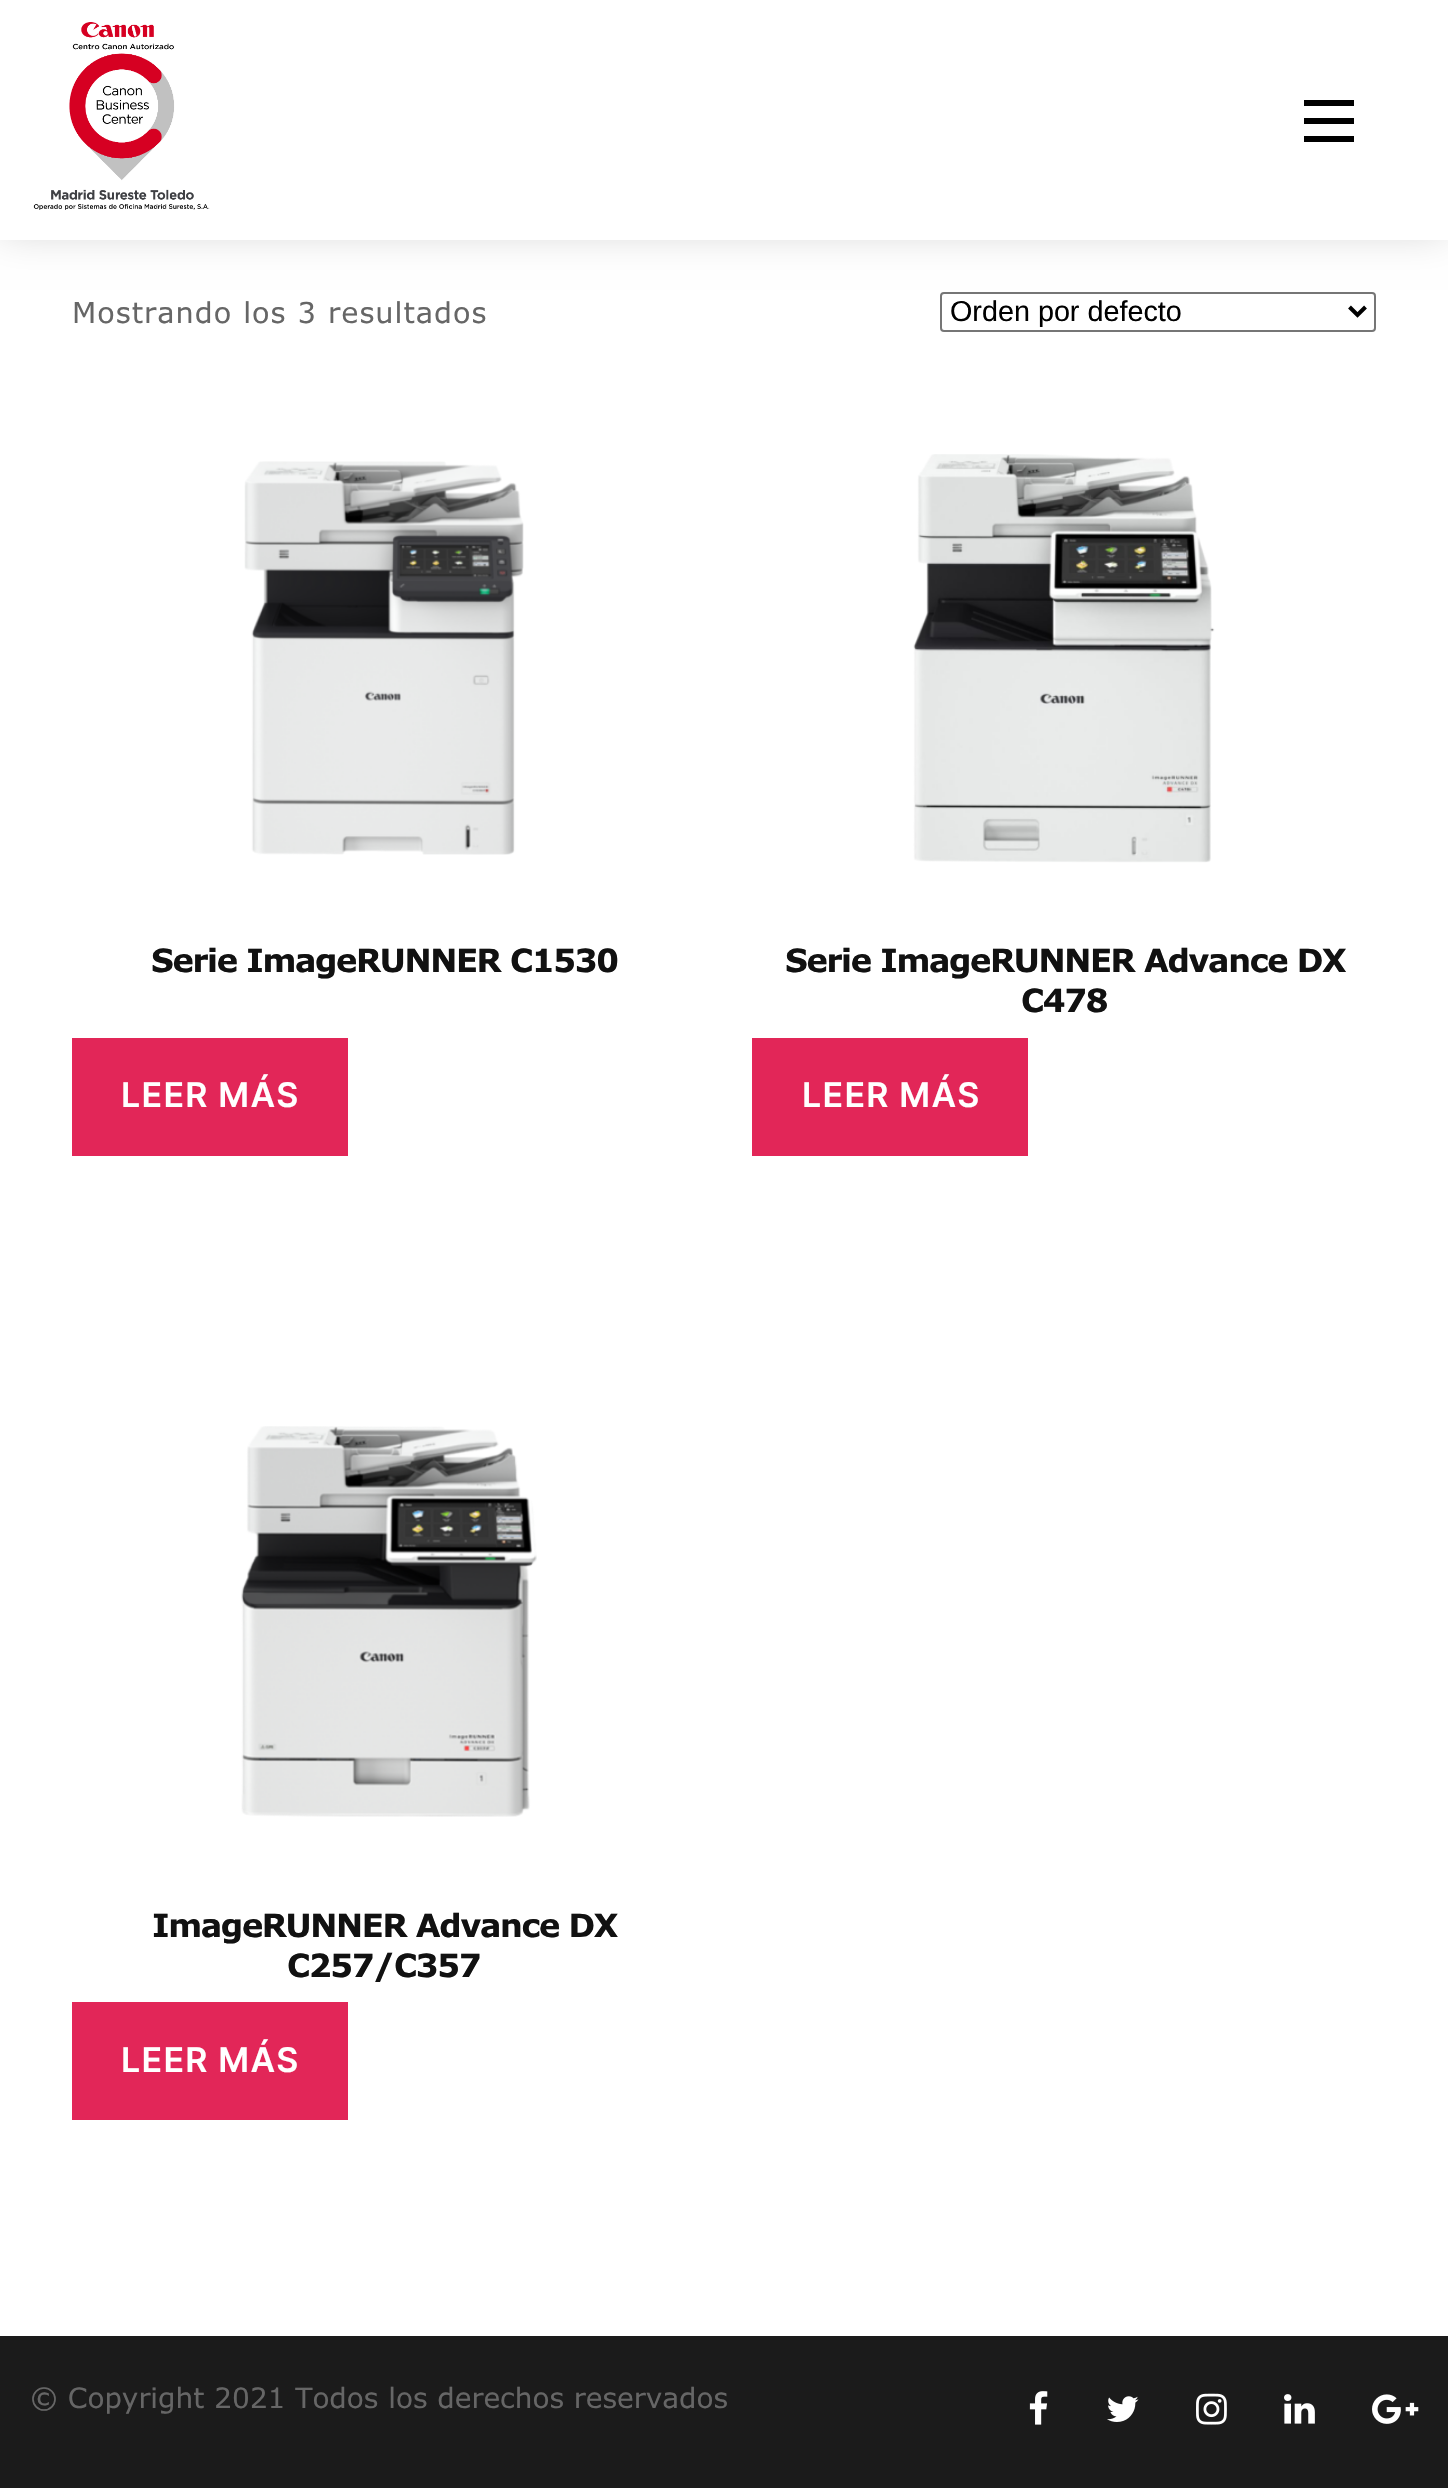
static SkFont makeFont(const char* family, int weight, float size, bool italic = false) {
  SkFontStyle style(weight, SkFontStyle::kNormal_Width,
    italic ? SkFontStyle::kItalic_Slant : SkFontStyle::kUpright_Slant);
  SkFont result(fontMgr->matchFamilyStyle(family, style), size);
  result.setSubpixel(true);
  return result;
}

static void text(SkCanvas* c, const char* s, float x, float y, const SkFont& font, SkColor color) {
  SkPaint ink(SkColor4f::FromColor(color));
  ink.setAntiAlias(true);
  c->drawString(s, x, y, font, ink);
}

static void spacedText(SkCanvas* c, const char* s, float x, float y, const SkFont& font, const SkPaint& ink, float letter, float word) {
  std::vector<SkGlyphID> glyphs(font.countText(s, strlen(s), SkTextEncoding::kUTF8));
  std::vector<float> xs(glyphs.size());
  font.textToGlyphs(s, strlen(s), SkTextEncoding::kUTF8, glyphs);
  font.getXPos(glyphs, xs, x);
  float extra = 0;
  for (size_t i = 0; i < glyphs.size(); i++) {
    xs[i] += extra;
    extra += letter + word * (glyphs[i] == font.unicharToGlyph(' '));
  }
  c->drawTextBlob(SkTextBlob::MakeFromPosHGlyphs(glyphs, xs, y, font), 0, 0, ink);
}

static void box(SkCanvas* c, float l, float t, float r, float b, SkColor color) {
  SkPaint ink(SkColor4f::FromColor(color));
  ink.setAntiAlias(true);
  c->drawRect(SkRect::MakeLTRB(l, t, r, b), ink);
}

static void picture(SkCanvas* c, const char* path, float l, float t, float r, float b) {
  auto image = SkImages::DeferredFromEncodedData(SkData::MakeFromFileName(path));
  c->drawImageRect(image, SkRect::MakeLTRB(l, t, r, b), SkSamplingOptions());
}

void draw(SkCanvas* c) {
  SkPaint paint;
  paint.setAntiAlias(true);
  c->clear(0xffffffff);
  paint.setColor(0x33000000);
  paint.setMaskFilter(SkMaskFilter::MakeBlur(kNormal_SkBlurStyle, 20));
  c->drawRect(SkRect::MakeLTRB(0, -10, 1448, 230), paint);
  paint.setMaskFilter(nullptr);
  box(c, 0, 0, 1448, 240, 0xffffffff);
  picture(c, "img_01.png", 33, 22, 210, 210);
  box(c, 1304, 118, 1354, 124, 0xff000000);
  box(c, 1304, 100, 1354, 106, 0xff000000);
  box(c, 1304, 136, 1354, 142, 0xff000000);
  SkFont face1 = makeFont("Verdana", 400, 28.75f);
  paint.setColor(0xff666666);
  spacedText(c, "Mostrando los 3 resultados", 72, 323, face1, paint, 1, 0);
  paint.setStyle(SkPaint::kStroke_Style);
  paint.setStrokeWidth(2);
  paint.setColor(0xff767676);
  c->drawRoundRect(SkRect::MakeLTRB(941, 293, 1375, 331), 3, 3, paint);
  paint.setStrokeWidth(4);
  paint.setColor(0xff000000);
  c->drawPath(SkPathBuilder().moveTo(1349.5f, 307).lineTo(1357.5f, 315).lineTo(1365.5f, 307).detach(), paint);
  SkFont face2 = makeFont("Liberation Sans", 400, 28.75f);
  text(c, "Orden por defecto", 950, 321, face2, 0xff000000);
  picture(c, "img_02.png", 244, 461, 524, 855);
  SkFont face3 = makeFont("Verdana", 700, 32);
  paint.setStyle(SkPaint::kFill_Style);
  paint.setColor(0xff111111);
  spacedText(c, "Serie ImageRUNNER C1530", 151, 972, face3, paint, -1.3f, 0);
  box(c, 72, 1038, 348, 1156, 0xffe22658);
  SkFont face4 = makeFont("Inter", 600, 34);
  paint.setColor(0xffffffff);
  spacedText(c, "LEER MÁS", 121, 1107, face4, paint, 1.25f, 0);
  picture(c, "img_03.png", 913, 454, 1215, 863);
  paint.setColor(0xff111111);
  spacedText(c, "Serie ImageRUNNER Advance DX", 785, 972, face3, paint, -1.3f, 0);
  spacedText(c, "C478", 1021, 1012, face3, paint, -1.3f, 0);
  box(c, 752, 1038, 1028, 1156, 0xffe22658);
  paint.setColor(0xffffffff);
  spacedText(c, "LEER MÁS", 802, 1107, face4, paint, 1.25f, 0);
  picture(c, "img_04.png", 241, 1426, 537, 1817);
  paint.setColor(0xff111111);
  spacedText(c, "ImageRUNNER Advance DX", 152, 1937, face3, paint, -1.3f, 0);
  spacedText(c, "C257/C357", 287, 1977, face3, paint, -1.3f, 0);
  box(c, 72, 2002, 348, 2120, 0xffe22658);
  paint.setColor(0xffffffff);
  spacedText(c, "LEER MÁS", 121, 2072, face4, paint, 1.25f, 0);
  box(c, 0, 2336, 1448, 2488, 0xff1b1b1b);
  SkFont face5 = makeFont("Verdana", 400, 28);
  text(c, "© Copyright 2021 Todos los derechos reservados", 30, 2408, face5, 0xff666666);
  picture(c, "img_05.png", 1029, 2391, 1048, 2425);
  picture(c, "img_06.png", 1107, 2396, 1139, 2422);
  picture(c, "img_07.png", 1196, 2393, 1227, 2425);
  picture(c, "img_08.png", 1284, 2394, 1315, 2424);
  picture(c, "img_09.png", 1372, 2394, 1419, 2424);
}
